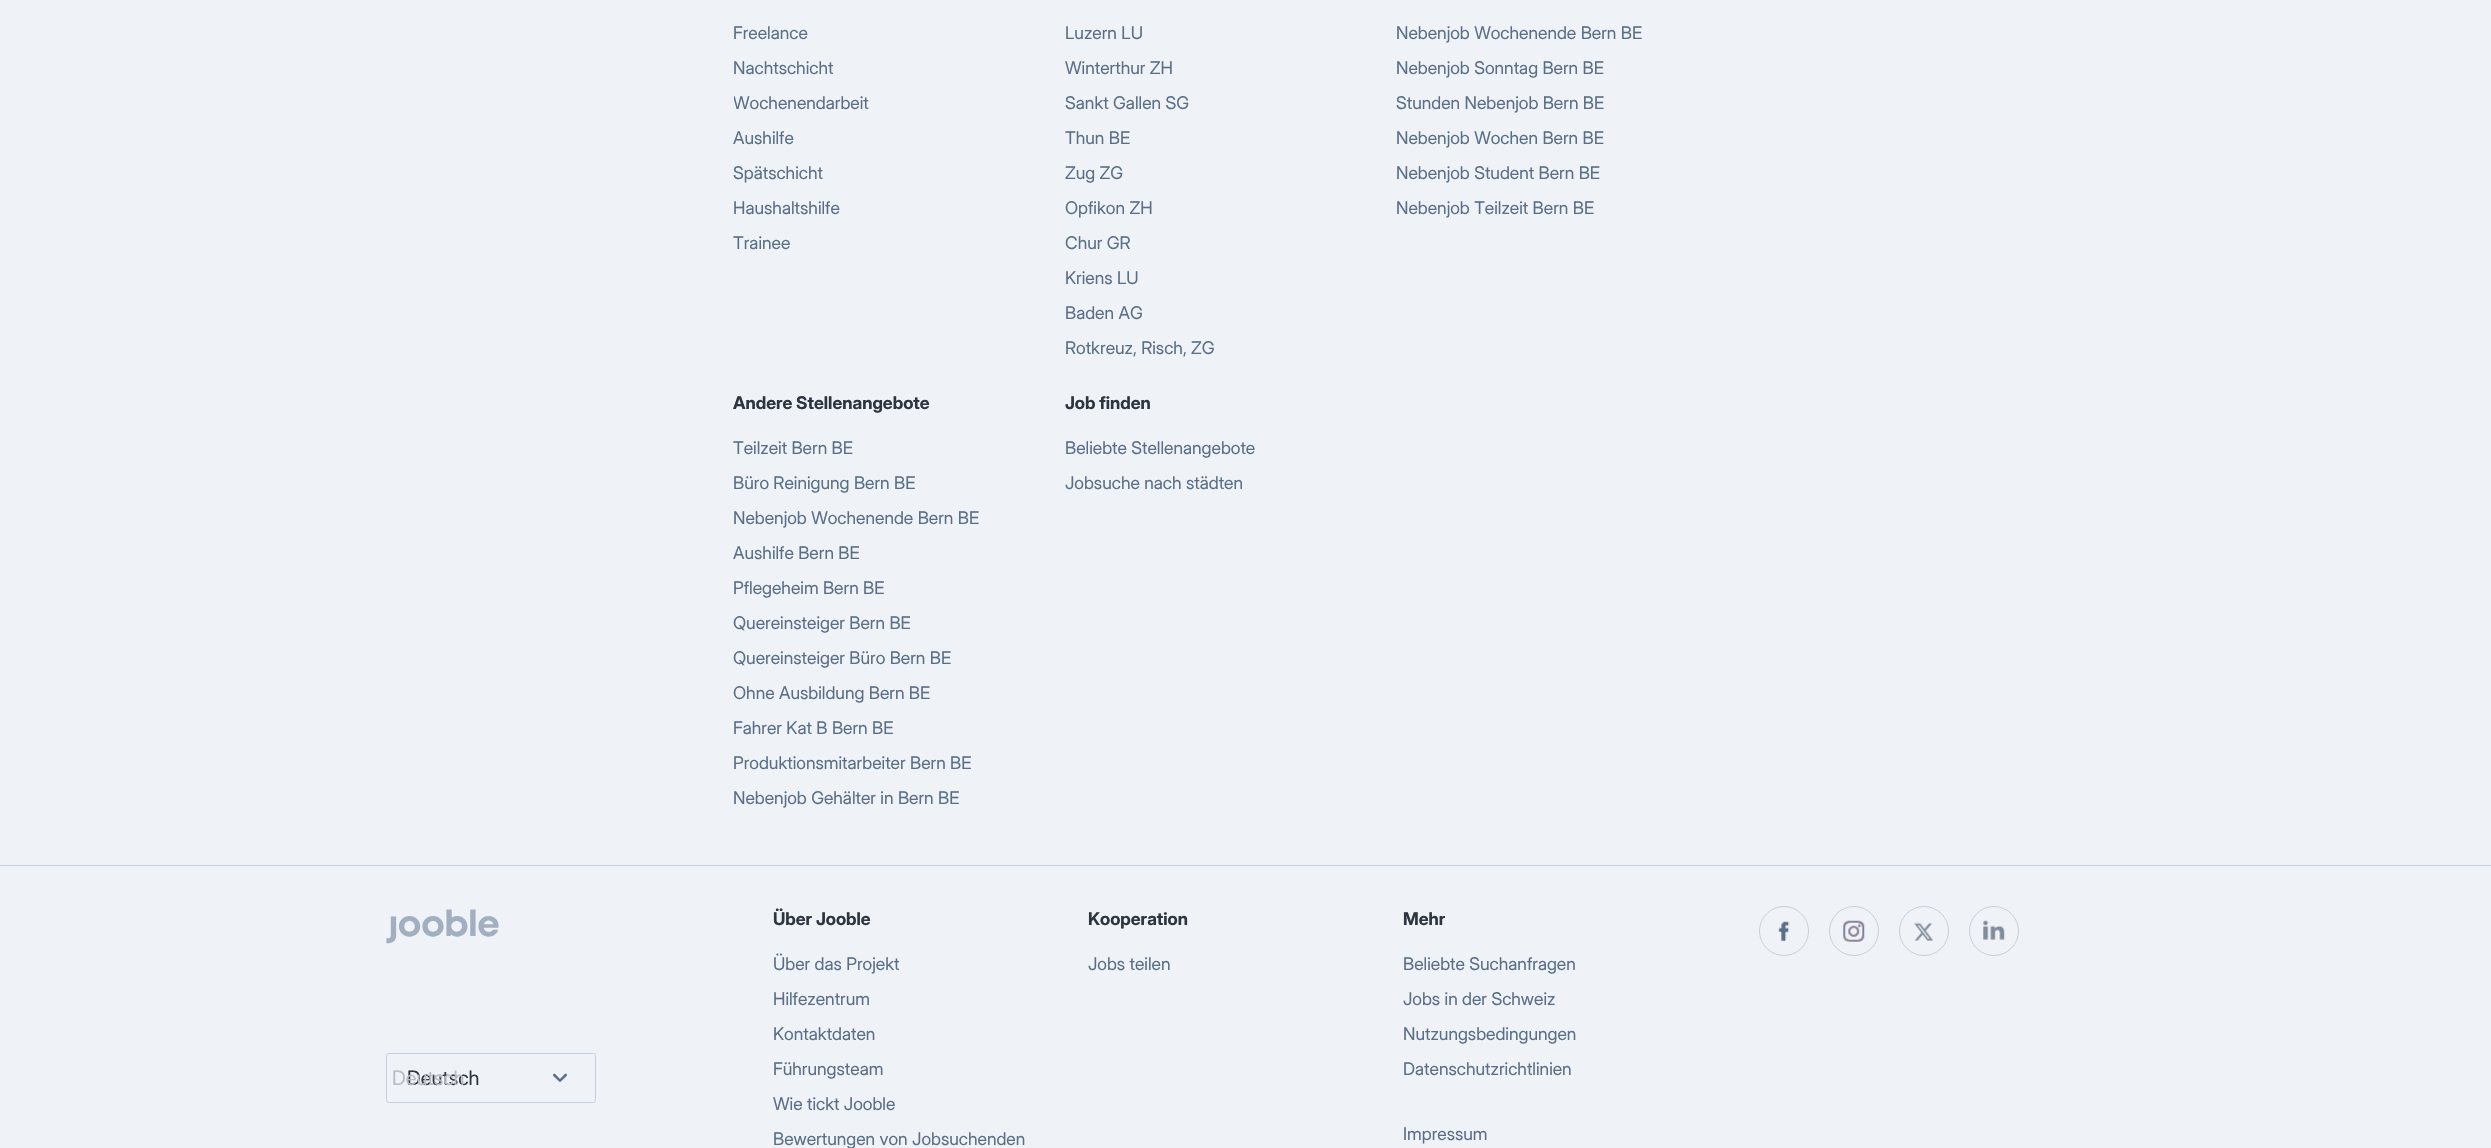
static SkFont makeFont(const char* family, int weight, float size, bool italic = false) {
  SkFontStyle style(weight, SkFontStyle::kNormal_Width,
    italic ? SkFontStyle::kItalic_Slant : SkFontStyle::kUpright_Slant);
  SkFont result(fontMgr->matchFamilyStyle(family, style), size);
  result.setSubpixel(true);
  return result;
}

static void text(SkCanvas* c, const char* s, float x, float y, const SkFont& font, SkColor color) {
  SkPaint ink(SkColor4f::FromColor(color));
  ink.setAntiAlias(true);
  c->drawString(s, x, y, font, ink);
}

static void box(SkCanvas* c, float l, float t, float r, float b, SkColor color) {
  SkPaint ink(SkColor4f::FromColor(color));
  ink.setAntiAlias(true);
  c->drawRect(SkRect::MakeLTRB(l, t, r, b), ink);
}

static void picture(SkCanvas* c, const char* path, float l, float t, float r, float b) {
  auto image = SkImages::DeferredFromEncodedData(SkData::MakeFromFileName(path));
  c->drawImageRect(image, SkRect::MakeLTRB(l, t, r, b), SkSamplingOptions());
}

void draw(SkCanvas* c) {
  SkPaint paint;
  paint.setAntiAlias(true);
  c->clear(0xffeff2f6);
  SkFont face1 = makeFont("Inter Display", 400, 17.5f);
  text(c, "Freelance", 733, 39, face1, 0xff5a6f87);
  text(c, "Nachtschicht", 733, 74, face1, 0xff5a6f87);
  c->save();
  c->clipRect(SkRect::MakeLTRB(734, 0, 1729, 840));
  text(c, "Wochenendarbeit", 733, 109, face1, 0xff5a6f87);
  c->restore();
  text(c, "Aushilfe", 733, 144, face1, 0xff5a6f87);
  text(c, "Spätschicht", 733, 179, face1, 0xff5a6f87);
  text(c, "Haushaltshilfe", 733, 214, face1, 0xff5a6f87);
  text(c, "Trainee", 733, 249, face1, 0xff5a6f87);
  text(c, "Luzern LU", 1065, 39, face1, 0xff5a6f87);
  text(c, "Winterthur ZH", 1065, 74, face1, 0xff5a6f87);
  text(c, "Sankt Gallen SG", 1065, 109, face1, 0xff5a6f87);
  text(c, "Thun BE", 1065, 144, face1, 0xff5a6f87);
  text(c, "Zug ZG", 1065, 179, face1, 0xff5a6f87);
  text(c, "Opfikon ZH", 1065, 214, face1, 0xff5a6f87);
  text(c, "Chur GR", 1065, 249, face1, 0xff5a6f87);
  text(c, "Kriens LU", 1065, 284, face1, 0xff5a6f87);
  text(c, "Baden AG", 1065, 319, face1, 0xff5a6f87);
  text(c, "Rotkreuz, Risch, ZG", 1065, 354, face1, 0xff5a6f87);
  text(c, "Nebenjob Wochenende Bern BE", 1396, 39, face1, 0xff5a6f87);
  text(c, "Nebenjob Sonntag Bern BE", 1396, 74, face1, 0xff5a6f87);
  text(c, "Stunden Nebenjob Bern BE", 1396, 109, face1, 0xff5a6f87);
  text(c, "Nebenjob Wochen Bern BE", 1396, 144, face1, 0xff5a6f87);
  text(c, "Nebenjob Student Bern BE", 1396, 179, face1, 0xff5a6f87);
  text(c, "Nebenjob Teilzeit Bern BE", 1396, 214, face1, 0xff5a6f87);
  SkFont face2 = makeFont("Inter Display", 700, 17.5f);
  text(c, "Andere Stellenangebote", 733, 409, face2, 0xff2d3540);
  text(c, "Teilzeit Bern BE", 733, 454, face1, 0xff5a6f87);
  text(c, "Büro Reinigung Bern BE", 733, 489, face1, 0xff5a6f87);
  text(c, "Nebenjob Wochenende Bern BE", 733, 524, face1, 0xff5a6f87);
  text(c, "Aushilfe Bern BE", 733, 559, face1, 0xff5a6f87);
  text(c, "Pflegeheim Bern BE", 733, 594, face1, 0xff5a6f87);
  text(c, "Quereinsteiger Bern BE", 733, 629, face1, 0xff5a6f87);
  text(c, "Quereinsteiger Büro Bern BE", 733, 664, face1, 0xff5a6f87);
  text(c, "Ohne Ausbildung Bern BE", 733, 699, face1, 0xff5a6f87);
  text(c, "Fahrer Kat B Bern BE", 733, 734, face1, 0xff5a6f87);
  text(c, "Produktionsmitarbeiter Bern BE", 733, 769, face1, 0xff5a6f87);
  text(c, "Nebenjob Gehälter in Bern BE", 733, 804, face1, 0xff5a6f87);
  text(c, "Job finden", 1065, 409, face2, 0xff2d3540);
  text(c, "Beliebte Stellenangebote", 1065, 454, face1, 0xff5a6f87);
  text(c, "Jobsuche nach städten", 1065, 489, face1, 0xff5a6f87);
  box(c, 0, 865, 2491, 866, 0xffc5d0de);
  picture(c, "img_01.png", 386, 909, 499, 944);
  text(c, "Über Jooble", 773, 925, face2, 0xff2d3540);
  text(c, "Über das Projekt", 773, 970, face1, 0xff5a6f87);
  text(c, "Hilfezentrum", 773, 1005, face1, 0xff5a6f87);
  text(c, "Kontaktdaten", 773, 1040, face1, 0xff5a6f87);
  text(c, "Führungsteam", 773, 1075, face1, 0xff5a6f87);
  text(c, "Wie tickt Jooble", 773, 1110, face1, 0xff5a6f87);
  text(c, "Bewertungen von Jobsuchenden", 773, 1145, face1, 0xff5a6f87);
  text(c, "Kooperation", 1088, 925, face2, 0xff2d3540);
  text(c, "Jobs teilen", 1088, 970, face1, 0xff5a6f87);
  text(c, "Mehr", 1403, 925, face2, 0xff2d3540);
  text(c, "Beliebte Suchanfragen", 1403, 970, face1, 0xff5a6f87);
  text(c, "Jobs in der Schweiz", 1403, 1005, face1, 0xff5a6f87);
  text(c, "Nutzungsbedingungen", 1403, 1040, face1, 0xff5a6f87);
  text(c, "Datenschutzrichtlinien", 1403, 1075, face1, 0xff5a6f87);
  text(c, "Impressum", 1403, 1140, face1, 0xff5a6f87);
  paint.setStyle(SkPaint::kStroke_Style);
  paint.setStrokeWidth(1);
  paint.setColor(0xffc5d0de);
  c->drawCircle(1784, 931, 24.5f, paint);
  picture(c, "img_02.png", 1778, 921, 1790, 941);
  c->drawCircle(1854, 931, 24.5f, paint);
  picture(c, "img_03.png", 1843, 920, 1865, 942);
  c->drawCircle(1924, 931, 24.5f, paint);
  picture(c, "img_04.png", 1914, 922, 1934, 941);
  c->drawCircle(1994, 931, 24.5f, paint);
  picture(c, "img_05.png", 1983, 920, 2005, 940);
  c->drawRoundRect(SkRect::MakeLTRB(386.5f, 1053.5f, 595.5f, 1102.5f), 2, 2, paint);
  SkFont face3 = makeFont("Inter Display", 400, 20);
  text(c, "Deutsch", 407, 1085, face3, 0xff2d3540);
  text(c, "Deutsch", 392, 1085, face3, 0xffb9bdc3);
  picture(c, "img_06.png", 553, 1073, 567, 1082);
}
